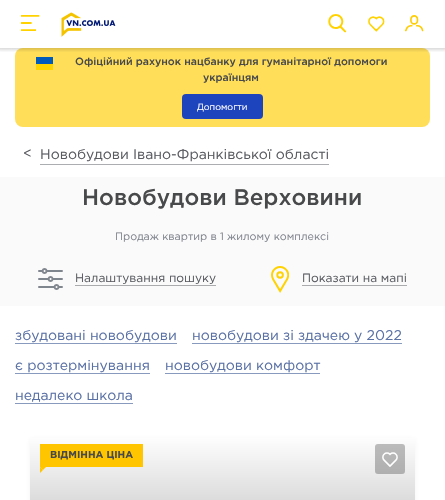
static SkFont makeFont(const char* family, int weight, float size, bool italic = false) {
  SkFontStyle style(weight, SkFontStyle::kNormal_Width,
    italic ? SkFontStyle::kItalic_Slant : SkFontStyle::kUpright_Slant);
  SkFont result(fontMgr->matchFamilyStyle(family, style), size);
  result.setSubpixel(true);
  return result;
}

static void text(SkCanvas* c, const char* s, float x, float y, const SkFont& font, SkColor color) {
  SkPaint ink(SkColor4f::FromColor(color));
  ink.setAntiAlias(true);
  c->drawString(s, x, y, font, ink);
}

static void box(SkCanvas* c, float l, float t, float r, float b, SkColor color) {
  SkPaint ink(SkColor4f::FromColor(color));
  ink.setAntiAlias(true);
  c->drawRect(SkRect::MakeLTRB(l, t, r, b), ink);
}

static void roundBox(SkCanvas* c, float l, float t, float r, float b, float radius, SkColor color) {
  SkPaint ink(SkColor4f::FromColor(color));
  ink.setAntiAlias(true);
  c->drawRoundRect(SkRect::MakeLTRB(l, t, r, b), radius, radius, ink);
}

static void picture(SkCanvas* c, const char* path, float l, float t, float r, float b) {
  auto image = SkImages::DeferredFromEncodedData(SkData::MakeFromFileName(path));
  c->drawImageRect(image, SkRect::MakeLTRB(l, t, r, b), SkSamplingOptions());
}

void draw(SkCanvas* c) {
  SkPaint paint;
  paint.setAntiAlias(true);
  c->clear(0xffffffff);
  roundBox(c, 15, 48, 430, 127, 8, 0xffffde5a);
  c->save();
  c->clipRect(SkRect::MakeLTRB(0, 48, 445, 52));
  paint.setColor(0x26000000);
  paint.setMaskFilter(SkMaskFilter::MakeBlur(kNormal_SkBlurStyle, 1.5f));
  c->drawRect(SkRect::MakeLTRB(-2, -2, 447, 50), paint);
  paint.setMaskFilter(nullptr);
  c->restore();
  picture(c, "img_01.png", 21, 15, 40, 31);
  picture(c, "img_02.png", 61, 12, 116, 37);
  picture(c, "img_03.png", 328, 14, 347, 33);
  picture(c, "img_04.png", 368, 16, 385, 32);
  picture(c, "img_05.png", 405, 15, 424, 32);
  box(c, 36, 64, 53, 70, 0xffffd500);
  box(c, 36, 57, 53, 64, 0xff005bbb);
  SkFont face1 = makeFont("Gotham", 500, 10.5f);
  text(c, "Офіційний рахунок нацбанку для гуманітарної допомоги", 75, 65, face1, 0xff48494a);
  text(c, "українцям", 203, 81, face1, 0xff48494a);
  roundBox(c, 182, 94, 263, 119, 4, 0xff1d43bd);
  SkFont face2 = makeFont("Gotham", 400, 9);
  text(c, "Допомогти", 197, 110, face2, 0xffffffff);
  SkFont face3 = makeFont("Gotham", 400, 14);
  text(c, "<", 23, 158, face3, 0xff595b60);
  box(c, 40, 164, 329, 165, 0xffacadb0);
  text(c, "Новобудови Івано-Франківської області", 40, 159, face3, 0xff595b60);
  box(c, 0, 177, 445, 306, 0xfffafafa);
  SkFont face4 = makeFont("Gotham", 500, 22.5f);
  text(c, "Новобудови Верховини", 82, 205, face4, 0xff48494a);
  SkFont face5 = makeFont("Gotham", 400, 10.75f);
  text(c, "Продаж квартир в 1 жилому комплексi", 115, 240, face5, 0xff80848d);
  picture(c, "img_06.png", 38, 268, 63, 290);
  box(c, 75, 285, 216, 286, 0xffaaabad);
  SkFont face6 = makeFont("Gotham", 400, 12);
  text(c, "Налаштування пошуку", 75, 282, face6, 0xff595b60);
  picture(c, "img_07.png", 271, 266, 289, 293);
  box(c, 302, 285, 407, 286, 0xffaaabad);
  text(c, "Показати на мапі", 302, 282, face6, 0xff595b60);
  box(c, 15, 343, 177, 344, 0xff899abf);
  text(c, "збудовані новобудови", 15, 340, face3, 0xff5a71a5);
  box(c, 192, 343, 402, 344, 0xff899abf);
  text(c, "новобудови зі здачею у 2022", 192, 340, face3, 0xff5a71a5);
  box(c, 15, 373, 150, 374, 0xff899abf);
  text(c, "є розтермінування", 15, 370, face3, 0xff5a71a5);
  box(c, 165, 373, 320, 374, 0xff899abf);
  text(c, "новобудови комфорт", 165, 370, face3, 0xff5a71a5);
  box(c, 15, 403, 133, 404, 0xff899abf);
  text(c, "недалеко школа", 15, 400, face3, 0xff5a71a5);
  paint.setColor(0x0d171819);
  paint.setMaskFilter(SkMaskFilter::MakeBlur(kNormal_SkBlurStyle, 2.5f));
  c->drawRect(SkRect::MakeLTRB(30, 439, 415, 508), paint);
  paint.setMaskFilter(nullptr);
  {
    const SkColor colors[] = {0xff808080, 0xffffffff};
    const float stops[] = {0, 1};
    const SkPoint ends[] = {{223, 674}, {223, 434}};
    paint.setShader(SkGradientShader::MakeLinear(ends, colors, stops, 2, SkTileMode::kClamp));
    paint.setAlpha(255);
  }
  c->drawRect(SkRect::MakeLTRB(30, 438, 415, 500), paint);
  box(c, 40, 444, 143, 467, 0xffffc600);
  SkFont face7 = makeFont("Gotham", 700, 10);
  text(c, "ВІДМІННА ЦІНА", 50, 458, face7, 0xff48494a);
  paint.setShader(nullptr);
  paint.setColor(0xffffc600);
  c->drawPath(SkPathBuilder().moveTo(40, 467).lineTo(46, 467).lineTo(43, 470).close().detach(), paint);
  c->drawPath(SkPathBuilder().moveTo(40, 473).lineTo(40, 467).lineTo(43, 470).close().detach(), paint);
  roundBox(c, 375, 444, 405, 474, 3, 0x40000000);
  picture(c, "img_08.png", 382, 452, 398, 467);
}
